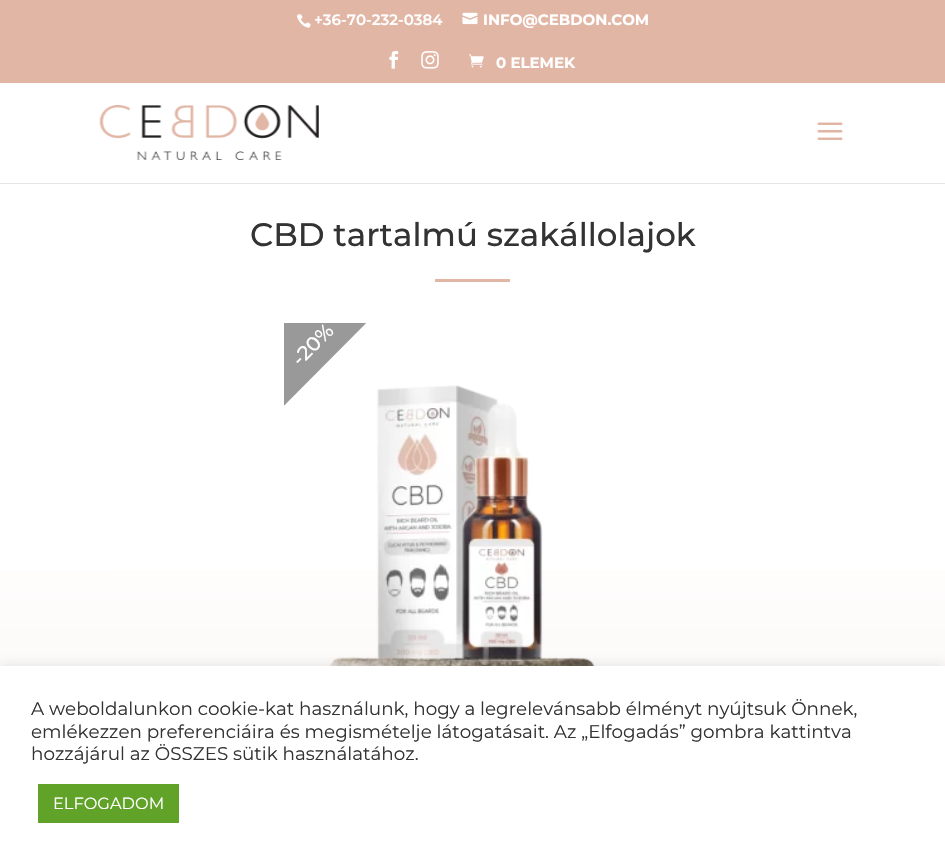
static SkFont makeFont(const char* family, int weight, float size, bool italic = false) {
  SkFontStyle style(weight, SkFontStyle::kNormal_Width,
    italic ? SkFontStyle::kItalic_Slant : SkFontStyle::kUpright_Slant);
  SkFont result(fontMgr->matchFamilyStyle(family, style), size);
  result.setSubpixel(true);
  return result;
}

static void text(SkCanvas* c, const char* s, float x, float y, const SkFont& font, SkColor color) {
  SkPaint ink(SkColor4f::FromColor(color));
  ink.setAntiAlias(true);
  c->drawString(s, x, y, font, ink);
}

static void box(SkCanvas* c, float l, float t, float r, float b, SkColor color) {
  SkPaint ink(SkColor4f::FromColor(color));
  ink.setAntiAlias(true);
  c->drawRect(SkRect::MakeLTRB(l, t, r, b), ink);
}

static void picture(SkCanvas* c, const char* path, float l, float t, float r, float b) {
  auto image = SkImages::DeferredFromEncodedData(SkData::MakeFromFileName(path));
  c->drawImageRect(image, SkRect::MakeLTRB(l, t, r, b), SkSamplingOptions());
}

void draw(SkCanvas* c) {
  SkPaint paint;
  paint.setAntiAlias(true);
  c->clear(0xffffffff);
  box(c, 0, 0, 945, 83, 0xffe1b6a5);
  picture(c, "img_01.png", 297, 14, 311, 28);
  SkFont face1 = makeFont("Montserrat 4", 100, 15);
  text(c, "+36-70-232-0384", 314, 25, face1, 0xffffffff);
  picture(c, "img_02.png", 462, 12, 478, 25);
  SkFont face2 = makeFont("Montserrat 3", 100, 15);
  text(c, "INFO@CEBDON.COM", 483, 25, face2, 0xffffffff);
  picture(c, "img_03.png", 389, 51, 399, 69);
  picture(c, "img_04.png", 421, 51, 439, 69);
  picture(c, "img_05.png", 468, 54, 484, 68);
  text(c, "0 ELEMEK", 496, 68, face2, 0xffffffff);
  box(c, 0, 183, 945, 184, 0xffe6e6e6);
  picture(c, "img_06.png", 99, 105, 319, 160);
  picture(c, "img_07.png", 817, 122, 843, 140);
  {
    const SkColor colors[] = {0xffffffff, 0xfff0dcd3};
    const float stops[] = {0.2f, 1};
    const SkPoint ends[] = {{472, 181}, {473, 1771}};
    paint.setShader(SkGradientShader::MakeLinear(ends, colors, stops, 2, SkTileMode::kClamp));
    paint.setAlpha(255);
  }
  c->drawRect(SkRect::MakeLTRB(0, 571, 945, 666), paint);
  SkFont face3 = makeFont("Montserrat", 100, 32.5f);
  text(c, "CBD tartalmú szakállolajok", 250, 246, face3, 0xff333333);
  box(c, 435, 279, 510, 282, 0xffe1b6a5);
  picture(c, "img_08.png", 330, 385, 595, 666);
  c->save();
  c->clipRect(SkRect::MakeLTRB(284, 323, 661, 804));
  paint.setShader(nullptr);
  paint.setColor(0xff999999);
  c->drawPath(SkPathBuilder().moveTo(185, 399).lineTo(361, 222).lineTo(414, 275).lineTo(238, 452).close().detach(), paint);
  c->restore();
  SkFont face4 = makeFont("Montserrat", 100, 20);
  c->save();
  c->rotate(-45, 300, 367);
  text(c, "-20%", 300, 367, face4, 0xffffffff);
  c->restore();
  paint.setColor(0x4dacabab);
  paint.setMaskFilter(SkMaskFilter::MakeBlur(kNormal_SkBlurStyle, 6));
  c->drawRect(SkRect::MakeLTRB(0, 665, 945, 859), paint);
  paint.setMaskFilter(nullptr);
  box(c, 0, 666, 945, 859, 0xffffffff);
  SkFont face5 = makeFont("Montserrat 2", 100, 18.35f);
  text(c, "A weboldalunkon cookie-kat használunk, hogy a legrelevánsabb élményt nyújtsuk Önnek,", 31, 715, face5, 0xff333333);
  text(c, "emlékezzen preferenciáira és megismételje látogatásait. Az „Elfogadás” gombra kattintva", 31, 738, face5, 0xff333333);
  text(c, "hozzájárul az ÖSSZES sütik használatához.", 31, 760, face5, 0xff333333);
  box(c, 38, 784, 179, 823, 0xff61a229);
  SkFont face6 = makeFont("Montserrat 2", 100, 16.25f);
  text(c, "ELFOGADOM", 53, 809, face6, 0xffffffff);
}
